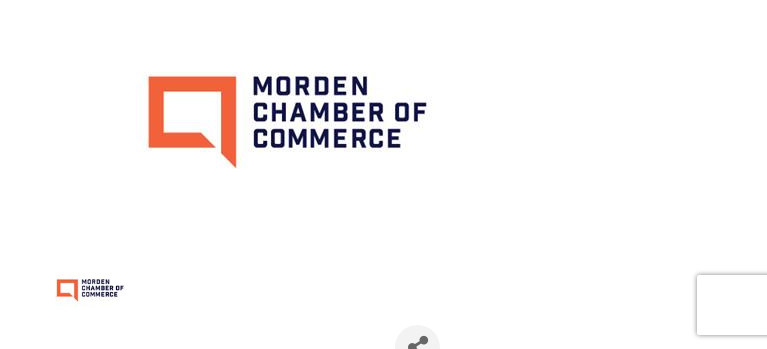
static void picture(SkCanvas* c, const char* path, float l, float t, float r, float b) {
  auto image = SkImages::DeferredFromEncodedData(SkData::MakeFromFileName(path));
  c->drawImageRect(image, SkRect::MakeLTRB(l, t, r, b), SkSamplingOptions());
}

void draw(SkCanvas* c) {
  SkPaint paint;
  paint.setAntiAlias(true);
  c->clear(0xffffffff);
  picture(c, "img_01.png", 136, 71, 434, 169);
  picture(c, "img_02.png", 55, 274, 126, 307);
  paint.setColor(0xfff3f3f3);
  c->drawCircle(417.5f, 347.5f, 22.5f, paint);
  picture(c, "img_03.png", 408, 335, 429, 349);
  c->save();
  c->clipPath(SkPathBuilder(SkPathFillType::kEvenOdd).moveTo(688, 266).lineTo(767, 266).lineTo(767, 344).lineTo(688, 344).close().moveTo(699, 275).lineTo(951, 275).cubicTo(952, 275, 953, 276, 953, 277).lineTo(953, 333).cubicTo(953, 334, 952, 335, 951, 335).lineTo(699, 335).cubicTo(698, 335, 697, 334, 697, 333).lineTo(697, 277).cubicTo(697, 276, 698, 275, 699, 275).close().detach(), true);
  paint.setColor(0xff808080);
  paint.setMaskFilter(SkMaskFilter::MakeBlur(kNormal_SkBlurStyle, 2.5f));
  c->drawRoundRect(SkRect::MakeLTRB(697, 275, 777, 335), 2, 2, paint);
  paint.setMaskFilter(nullptr);
  c->restore();
}
